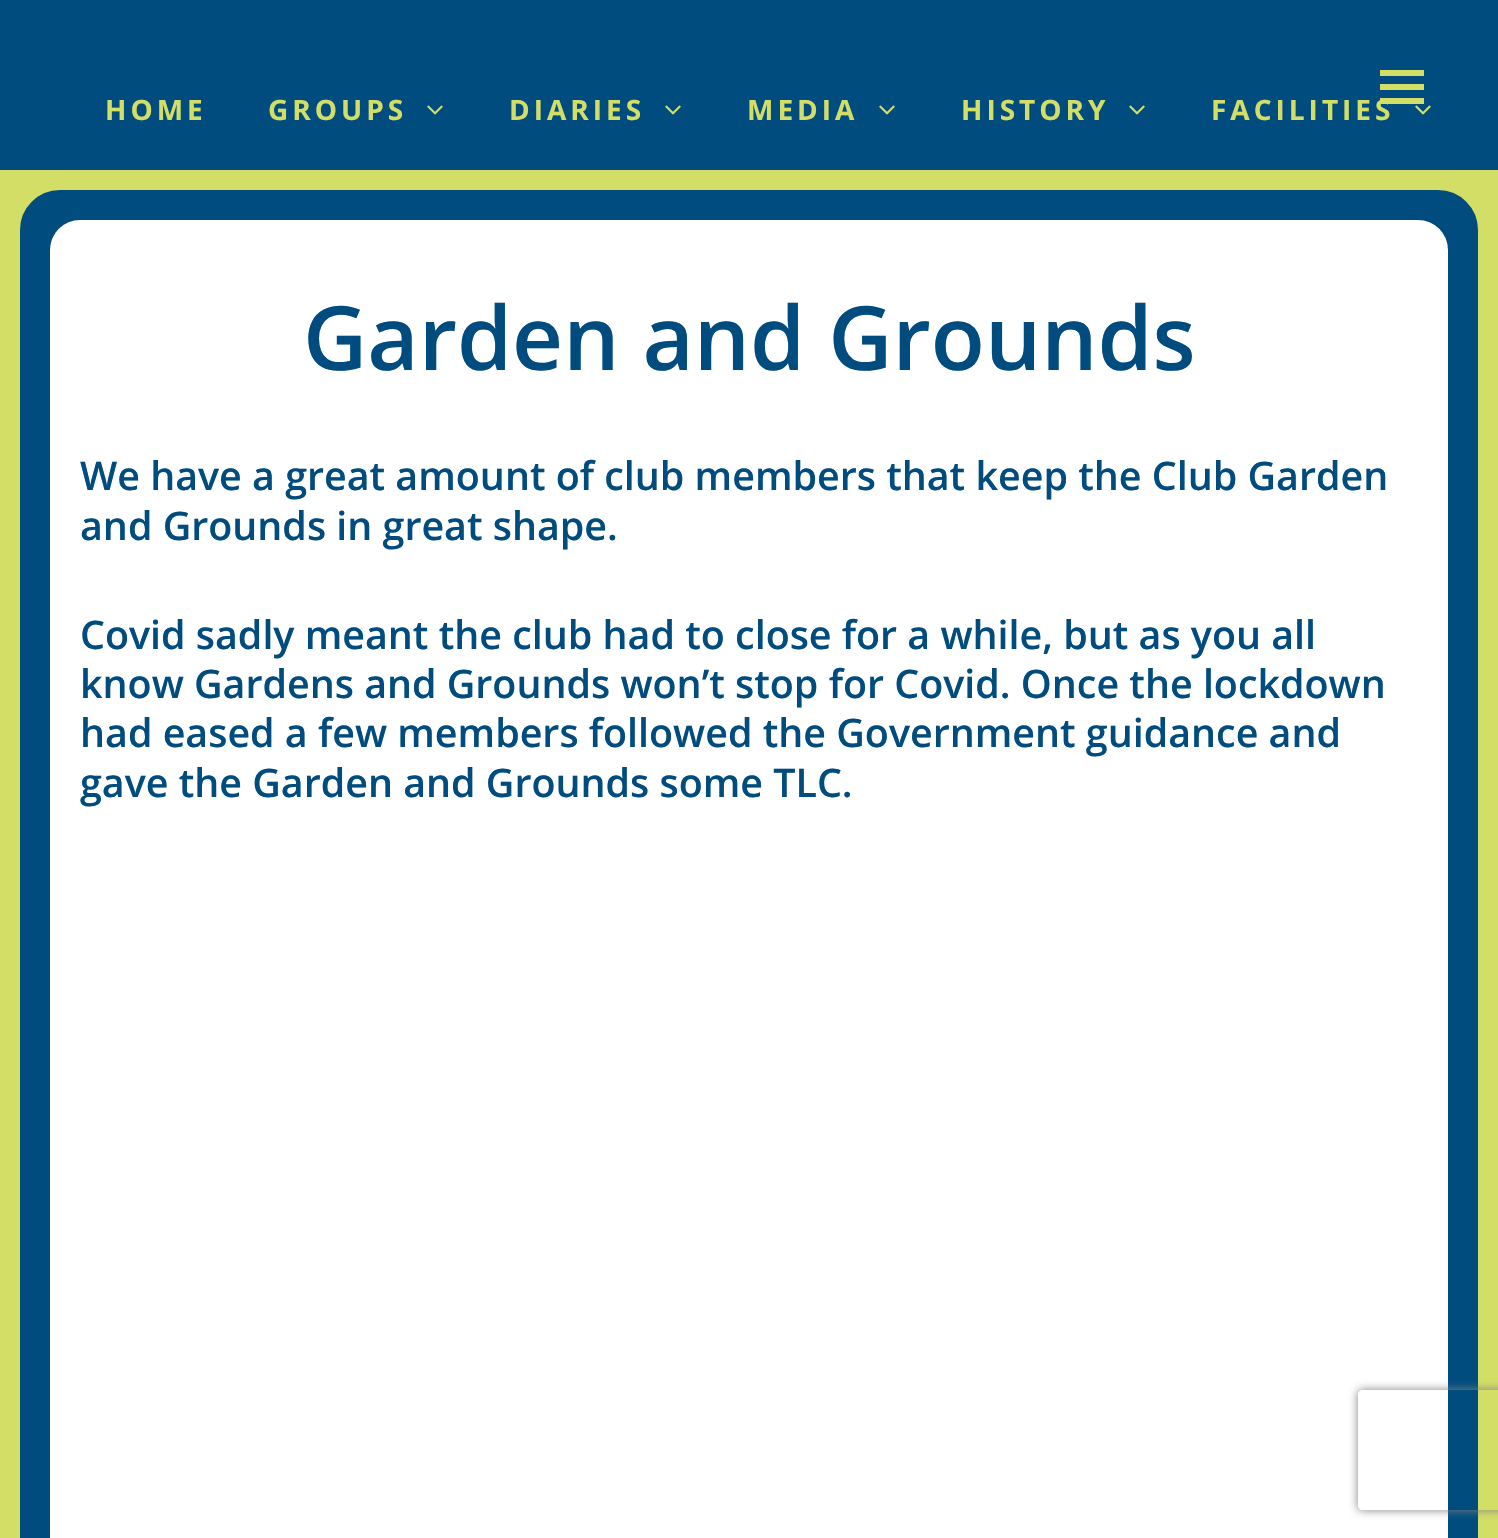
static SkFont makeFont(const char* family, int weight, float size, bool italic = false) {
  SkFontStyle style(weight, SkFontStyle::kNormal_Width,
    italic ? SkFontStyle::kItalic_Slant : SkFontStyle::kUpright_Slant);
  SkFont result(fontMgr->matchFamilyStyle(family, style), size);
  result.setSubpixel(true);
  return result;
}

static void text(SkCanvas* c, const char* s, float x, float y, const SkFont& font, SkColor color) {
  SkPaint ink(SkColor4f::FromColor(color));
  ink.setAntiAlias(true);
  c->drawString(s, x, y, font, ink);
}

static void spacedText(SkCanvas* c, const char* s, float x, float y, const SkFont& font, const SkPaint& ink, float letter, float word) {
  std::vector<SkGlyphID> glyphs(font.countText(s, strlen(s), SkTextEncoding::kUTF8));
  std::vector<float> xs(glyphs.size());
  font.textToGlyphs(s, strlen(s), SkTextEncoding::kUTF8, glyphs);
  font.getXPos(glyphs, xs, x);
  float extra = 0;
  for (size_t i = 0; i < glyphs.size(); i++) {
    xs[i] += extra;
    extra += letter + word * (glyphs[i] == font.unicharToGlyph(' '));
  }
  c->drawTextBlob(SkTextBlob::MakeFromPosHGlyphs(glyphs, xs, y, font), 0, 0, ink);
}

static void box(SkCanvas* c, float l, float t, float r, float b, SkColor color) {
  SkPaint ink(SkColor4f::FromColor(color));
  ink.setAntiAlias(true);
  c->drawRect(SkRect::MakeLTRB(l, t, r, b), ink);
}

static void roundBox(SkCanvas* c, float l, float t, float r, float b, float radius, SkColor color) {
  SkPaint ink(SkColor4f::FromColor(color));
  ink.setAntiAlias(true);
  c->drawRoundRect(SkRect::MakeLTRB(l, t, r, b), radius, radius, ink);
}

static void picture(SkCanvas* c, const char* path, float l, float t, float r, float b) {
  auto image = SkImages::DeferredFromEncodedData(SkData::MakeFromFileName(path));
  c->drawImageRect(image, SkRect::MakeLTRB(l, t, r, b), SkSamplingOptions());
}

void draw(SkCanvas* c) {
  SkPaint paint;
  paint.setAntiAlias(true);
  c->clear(0xffd3de66);
  box(c, 0, 0, 1498, 170, 0xff004c7f);
  box(c, 1380, 84, 1424, 90, 0xffd3de66);
  box(c, 1380, 70, 1424, 76, 0xffd3de66);
  box(c, 1380, 98, 1424, 104, 0xffd3de66);
  SkFont face1 = makeFont("Open Sans", 700, 28);
  paint.setColor(0xffd3de66);
  spacedText(c, "HOME", 105, 120, face1, paint, 4, 0);
  spacedText(c, "GROUPS", 268, 120, face1, paint, 4, 0);
  picture(c, "img_01.png", 427, 105, 443, 115);
  spacedText(c, "DIARIES", 509, 120, face1, paint, 4, 0);
  picture(c, "img_01.png", 665, 105, 681, 115);
  spacedText(c, "MEDIA", 747, 120, face1, paint, 4, 0);
  picture(c, "img_01.png", 879, 105, 895, 115);
  spacedText(c, "HISTORY", 961, 120, face1, paint, 4, 0);
  picture(c, "img_01.png", 1129, 105, 1145, 115);
  spacedText(c, "FACILITIES", 1211, 120, face1, paint, 4, 0);
  picture(c, "img_01.png", 1415, 105, 1431, 115);
  paint.setColor(0xff004c7f);
  c->drawRoundRect(SkRect::MakeLTRB(10, 180, 1488, 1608), 50, 50, paint);
  paint.setStyle(SkPaint::kStroke_Style);
  paint.setStrokeWidth(20);
  paint.setColor(0xffd3de66);
  c->drawRoundRect(SkRect::MakeLTRB(10, 180, 1488, 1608), 50, 50, paint);
  roundBox(c, 50, 220, 1448, 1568, 30, 0xffffffff);
  SkFont face2 = makeFont("Open Sans", 600, 88.6f);
  text(c, "Garden and Grounds", 303, 370, face2, 0xff004c7f);
  SkFont face3 = makeFont("Open Sans", 600, 39.4f);
  text(c, "We have a great amount of club members that keep the Club Garden", 80, 490, face3, 0xff004c7f);
  text(c, "and Grounds in great shape.", 80, 540, face3, 0xff004c7f);
  text(c, "Covid sadly meant the club had to close for a while, but as you all", 80, 649, face3, 0xff004c7f);
  text(c, "know Gardens and Grounds won’t stop for Covid. Once the lockdown", 80, 698, face3, 0xff004c7f);
  text(c, "had eased a few members followed the Government guidance and", 80, 747, face3, 0xff004c7f);
  text(c, "gave the Garden and Grounds some TLC.", 80, 797, face3, 0xff004c7f);
  c->save();
  c->clipPath(SkPathBuilder(SkPathFillType::kEvenOdd).moveTo(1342, 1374).lineTo(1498, 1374).lineTo(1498, 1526).lineTo(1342, 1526).close().moveTo(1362, 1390).lineTo(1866, 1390).cubicTo(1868, 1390, 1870, 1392, 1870, 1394).lineTo(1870, 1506).cubicTo(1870, 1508, 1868, 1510, 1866, 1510).lineTo(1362, 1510).cubicTo(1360, 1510, 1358, 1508, 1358, 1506).lineTo(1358, 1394).cubicTo(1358, 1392, 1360, 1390, 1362, 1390).close().detach(), true);
  paint.setStyle(SkPaint::kFill_Style);
  paint.setColor(0xff808080);
  paint.setMaskFilter(SkMaskFilter::MakeBlur(kNormal_SkBlurStyle, 5));
  c->drawRoundRect(SkRect::MakeLTRB(1358, 1390, 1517, 1510), 4, 4, paint);
  paint.setMaskFilter(nullptr);
  c->restore();
}
